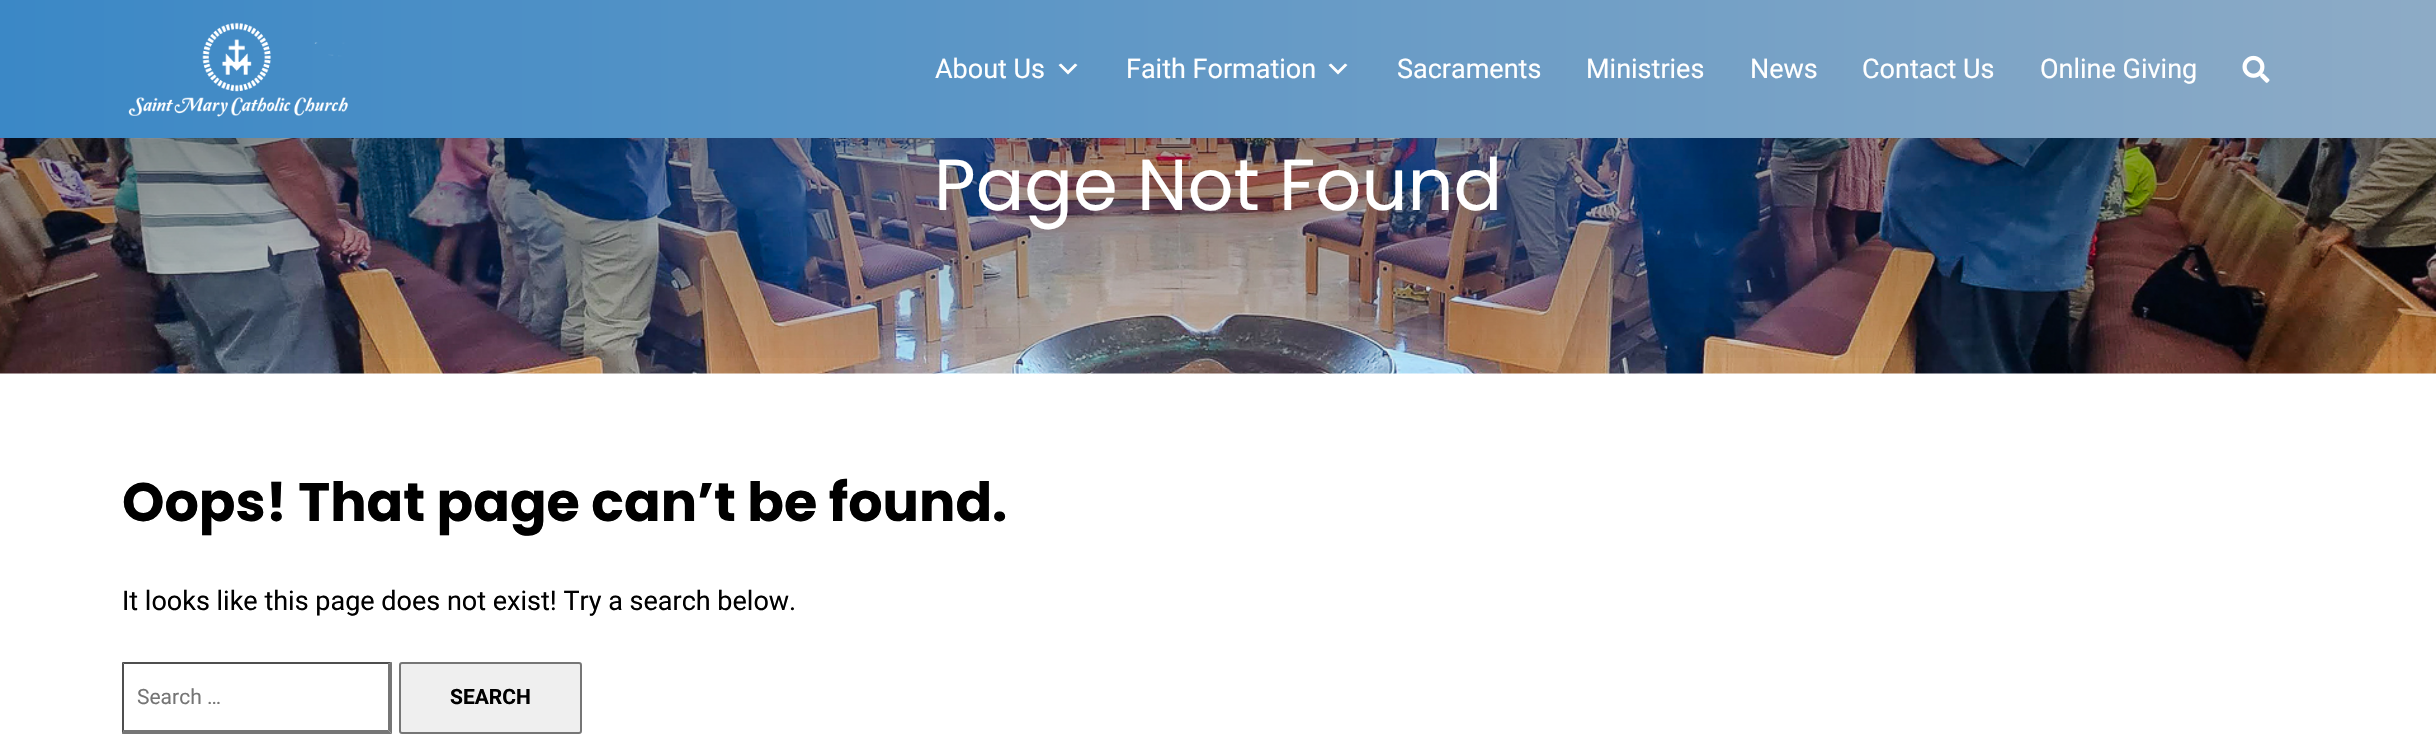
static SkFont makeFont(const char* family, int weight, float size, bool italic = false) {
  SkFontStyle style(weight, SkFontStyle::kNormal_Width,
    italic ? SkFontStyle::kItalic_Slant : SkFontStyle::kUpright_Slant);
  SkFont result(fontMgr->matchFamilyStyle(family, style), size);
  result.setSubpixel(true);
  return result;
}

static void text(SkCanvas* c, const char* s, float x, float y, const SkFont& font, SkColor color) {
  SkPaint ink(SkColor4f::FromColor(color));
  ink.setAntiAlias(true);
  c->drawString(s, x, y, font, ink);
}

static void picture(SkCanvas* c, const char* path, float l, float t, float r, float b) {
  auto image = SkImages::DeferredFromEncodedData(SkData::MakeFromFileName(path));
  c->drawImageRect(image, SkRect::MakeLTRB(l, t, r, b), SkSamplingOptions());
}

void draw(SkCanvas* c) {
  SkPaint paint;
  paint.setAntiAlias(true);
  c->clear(0xffffffff);
  {
    const SkColor colors[] = {0xff8dabc6, 0xff3b88c6};
    const float stops[] = {0, 1};
    const SkPoint ends[] = {{2436, 69}, {0, 69}};
    paint.setShader(SkGradientShader::MakeLinear(ends, colors, stops, 2, SkTileMode::kClamp));
    paint.setAlpha(255);
  }
  c->drawRect(SkRect::MakeLTRB(0, 0, 2436, 138), paint);
  picture(c, "img_01.png", 128, 22, 348, 117);
  SkFont face1 = makeFont("Roboto", 400, 27);
  text(c, "About Us", 935, 78, face1, 0xffffffff);
  paint.setShader(nullptr);
  paint.setColor(0xffffffff);
  c->drawPath(SkPathBuilder().moveTo(1061, 63.5f).lineTo(1068, 70.5f).lineTo(1075, 63.5f).lineTo(1077.5f, 65).lineTo(1068, 74.5f).lineTo(1058.5f, 65).close().detach(), paint);
  text(c, "Faith Formation", 1126, 78, face1, 0xffffffff);
  c->drawPath(SkPathBuilder().moveTo(1331, 63.5f).lineTo(1338, 70.5f).lineTo(1345, 63.5f).lineTo(1347.5f, 65).lineTo(1338, 74.5f).lineTo(1328.5f, 65).close().detach(), paint);
  text(c, "Sacraments", 1397, 78, face1, 0xffffffff);
  text(c, "Ministries", 1586, 78, face1, 0xffffffff);
  text(c, "News", 1750, 78, face1, 0xffffffff);
  text(c, "Contact Us", 1862, 78, face1, 0xffffffff);
  text(c, "Online Giving", 2040, 78, face1, 0xffffffff);
  picture(c, "img_02.png", 2242, 55, 2270, 83);
  picture(c, "img_03.png", 0, 138, 2436, 374);
  {
    const SkColor colors[] = {0x80000000, 0x00000000};
    const float stops[] = {0, 1};
    const SkPoint ends[] = {{1218, 0}, {1218, 374}};
    paint.setShader(SkGradientShader::MakeLinear(ends, colors, stops, 2, SkTileMode::kClamp));
    paint.setAlpha(255);
  }
  c->drawRect(SkRect::MakeLTRB(0, 138, 2436, 358), paint);
  SkFont face2 = makeFont("Poppins", 400, 72);
  text(c, "Page Not Found", 934, 210, face2, 0xffffffff);
  SkFont face3 = makeFont("Poppins", 700, 54);
  text(c, "Oops! That page can’t be found.", 122, 521, face3, 0xff000000);
  text(c, "It looks like this page does not exist! Try a search below.", 122, 610, face1, 0xff000000);
  paint.setShader(nullptr);
  paint.setColor(0xff4f4f4f);
  c->drawPath(SkPathBuilder().moveTo(122, 662).lineTo(392, 662).lineTo(388, 664).lineTo(124, 664).close().detach(), paint);
  paint.setColor(0xff767676);
  c->drawPath(SkPathBuilder().moveTo(392, 662).lineTo(392, 734).lineTo(388, 730).lineTo(388, 664).close().detach(), paint);
  c->drawPath(SkPathBuilder().moveTo(392, 734).lineTo(122, 734).lineTo(124, 730).lineTo(388, 730).close().detach(), paint);
  paint.setColor(0xff4f4f4f);
  c->drawPath(SkPathBuilder().moveTo(122, 734).lineTo(122, 662).lineTo(124, 664).lineTo(124, 730).close().detach(), paint);
  SkFont face4 = makeFont("Roboto", 400, 21);
  text(c, "Search …", 137, 704, face4, 0xff757575);
  paint.setColor(0xffefefef);
  c->drawRoundRect(SkRect::MakeLTRB(400, 663, 581, 733), 2, 2, paint);
  paint.setStyle(SkPaint::kStroke_Style);
  paint.setStrokeWidth(2);
  paint.setColor(0xff767676);
  c->drawRoundRect(SkRect::MakeLTRB(400, 663, 581, 733), 2, 2, paint);
  SkFont face5 = makeFont("Roboto", 700, 21);
  text(c, "SEARCH", 450, 704, face5, 0xff000000);
}
